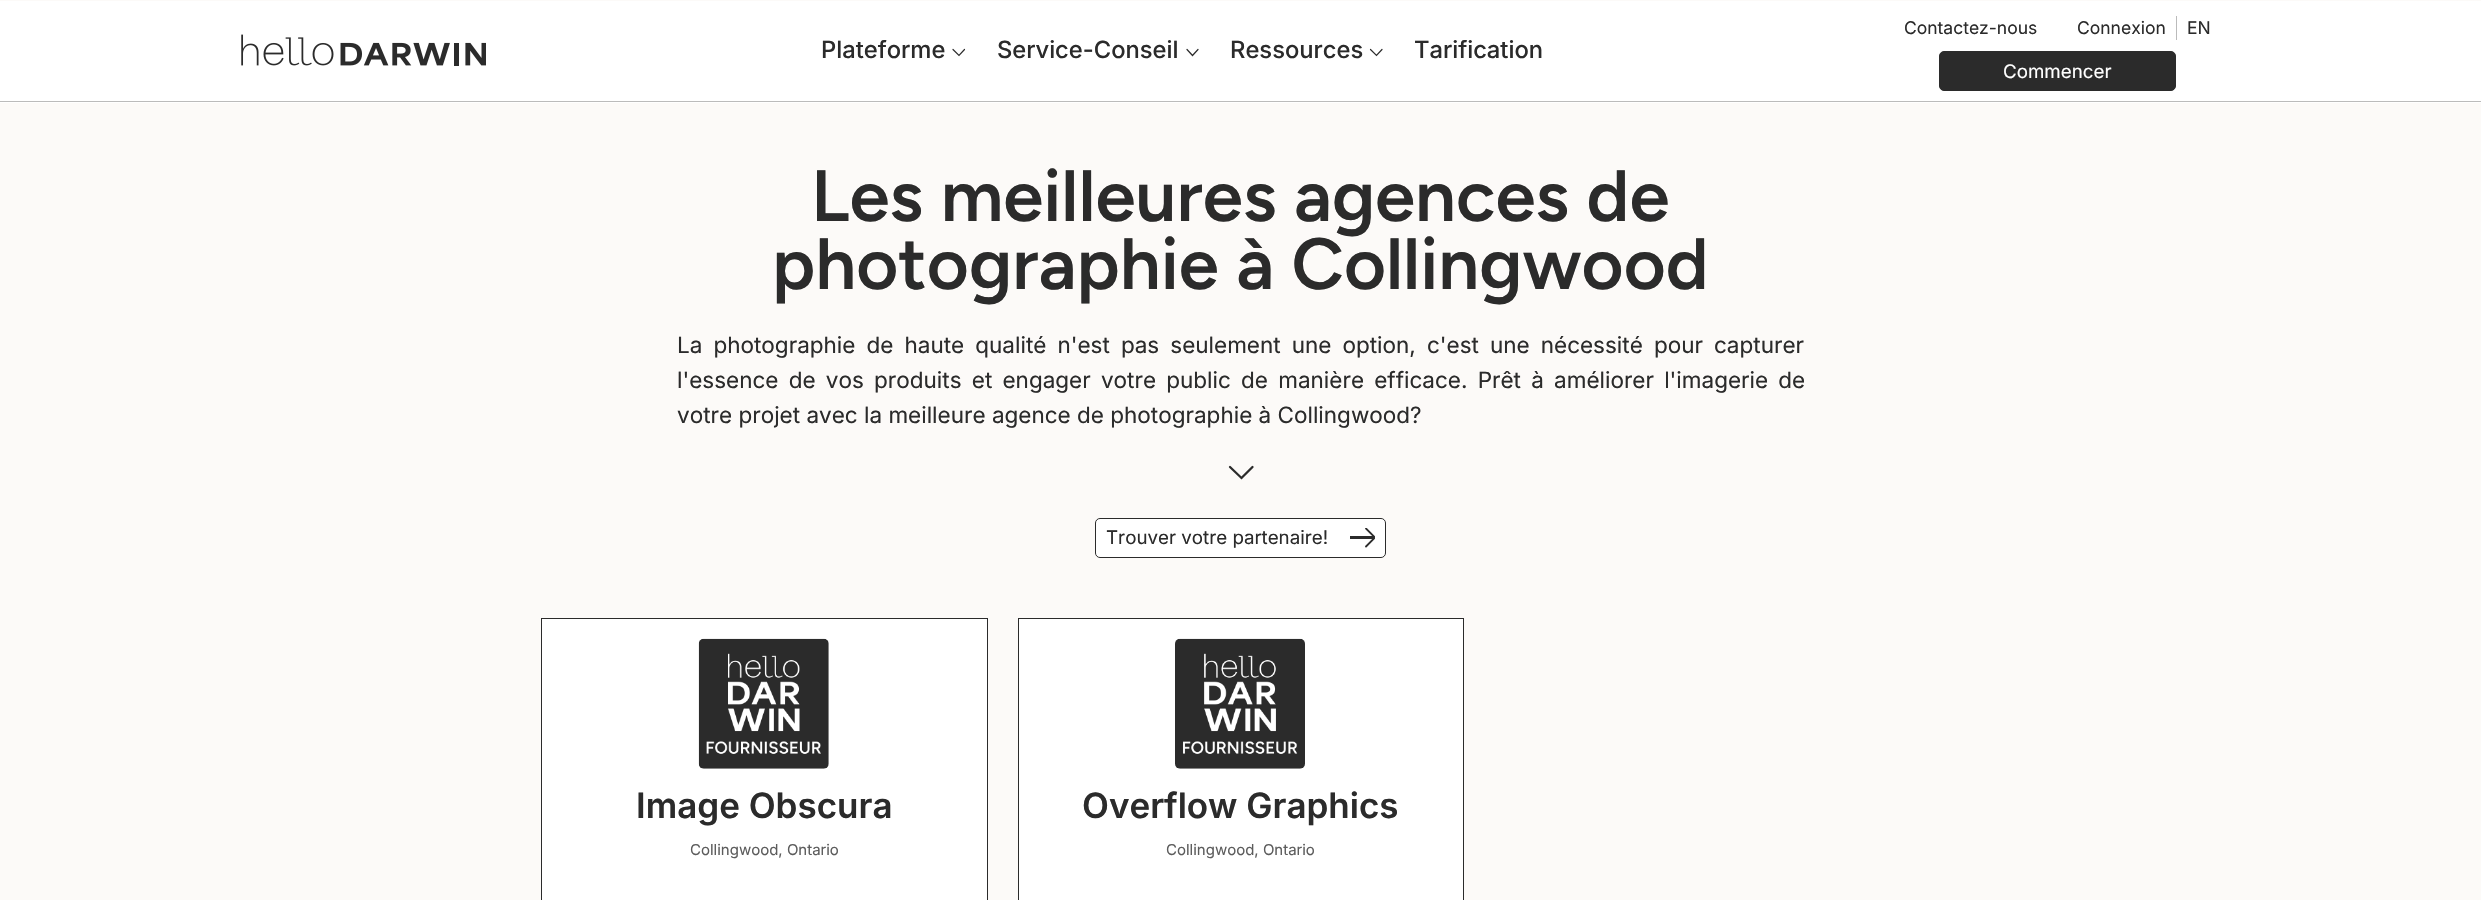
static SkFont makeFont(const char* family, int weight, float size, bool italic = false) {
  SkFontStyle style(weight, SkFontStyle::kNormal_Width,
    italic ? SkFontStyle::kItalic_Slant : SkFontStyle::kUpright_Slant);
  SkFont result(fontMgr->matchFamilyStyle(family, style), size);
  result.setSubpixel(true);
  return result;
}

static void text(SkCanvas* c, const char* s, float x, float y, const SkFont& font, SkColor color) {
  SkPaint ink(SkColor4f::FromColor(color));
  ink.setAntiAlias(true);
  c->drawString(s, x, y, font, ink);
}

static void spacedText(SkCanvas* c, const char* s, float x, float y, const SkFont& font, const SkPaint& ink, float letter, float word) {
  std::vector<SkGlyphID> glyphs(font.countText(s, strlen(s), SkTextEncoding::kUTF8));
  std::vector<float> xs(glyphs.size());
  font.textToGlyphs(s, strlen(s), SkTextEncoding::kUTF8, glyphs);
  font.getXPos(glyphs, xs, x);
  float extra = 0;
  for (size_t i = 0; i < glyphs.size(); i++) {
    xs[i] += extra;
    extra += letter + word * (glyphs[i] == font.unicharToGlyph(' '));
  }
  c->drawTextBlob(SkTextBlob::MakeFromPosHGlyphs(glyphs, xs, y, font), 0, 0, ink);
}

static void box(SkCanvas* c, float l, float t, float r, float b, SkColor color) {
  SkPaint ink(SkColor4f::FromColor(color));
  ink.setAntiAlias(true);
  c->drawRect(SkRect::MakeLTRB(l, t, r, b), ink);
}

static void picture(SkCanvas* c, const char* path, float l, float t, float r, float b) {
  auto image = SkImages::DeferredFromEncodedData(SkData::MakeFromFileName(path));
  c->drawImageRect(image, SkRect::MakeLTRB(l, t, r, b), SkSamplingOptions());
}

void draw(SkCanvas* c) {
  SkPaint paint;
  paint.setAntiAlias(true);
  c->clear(0xfffcfaf8);
  box(c, 0, 1, 2481, 103, 0xffffffff);
  box(c, 0, 101, 2481, 102, 0xffbbbbbb);
  picture(c, "img_01.png", 241, 34, 486, 66);
  SkFont face1 = makeFont("Inter", 500, 23.75f);
  text(c, "Plateforme", 821, 58, face1, 0xff2b2b2b);
  paint.setStyle(SkPaint::kStroke_Style);
  paint.setStrokeWidth(1.2f);
  paint.setStrokeCap(SkPaint::kRound_Cap);
  paint.setColor(0xff2b2b2b);
  c->drawPath(SkPathBuilder().moveTo(964.5f, 49.5f).lineTo(959, 55.5f).lineTo(953, 49.5f).detach(), paint);
  text(c, "Service-Conseil", 997, 58, face1, 0xff2b2b2b);
  c->drawPath(SkPathBuilder().moveTo(1198, 49.5f).lineTo(1192.5f, 55.5f).lineTo(1187, 49.5f).detach(), paint);
  text(c, "Ressources", 1230, 58, face1, 0xff2b2b2b);
  c->drawPath(SkPathBuilder().moveTo(1382, 49.5f).lineTo(1376.5f, 55.5f).lineTo(1370.5f, 49.5f).detach(), paint);
  text(c, "Tarification", 1414, 58, face1, 0xff2b2b2b);
  SkFont face2 = makeFont("Inter", 400, 17.5f);
  text(c, "Contactez-nous", 1904, 34, face2, 0xff2b2b2b);
  text(c, "Connexion", 2077, 34, face2, 0xff2b2b2b);
  box(c, 2176, 16, 2177, 40, 0xffbbbbbb);
  text(c, "EN", 2187, 34, face2, 0xff2b2b2b);
  paint.setStyle(SkPaint::kFill_Style);
  c->drawRoundRect(SkRect::MakeLTRB(1939.5f, 51.5f, 2175.5f, 90.5f), 4.5f, 4.5f, paint);
  paint.setStyle(SkPaint::kStroke_Style);
  paint.setStrokeWidth(1);
  paint.setStrokeCap(SkPaint::kButt_Cap);
  c->drawRoundRect(SkRect::MakeLTRB(1939.5f, 51.5f, 2175.5f, 90.5f), 4.5f, 4.5f, paint);
  SkFont face3 = makeFont("Inter", 400, 18.75f);
  text(c, "Commencer", 2003, 78, face3, 0xffffffff);
  SkFont face4 = makeFont("Figtree", 600, 72.5f);
  text(c, "Les meilleures agences de", 811, 221, face4, 0xff2b2b2b);
  text(c, "photographie à Collingwood", 772, 289, face4, 0xff2b2b2b);
  SkFont face5 = makeFont("Inter", 400, 22.5f);
  paint.setStyle(SkPaint::kFill_Style);
  spacedText(c, "La photographie de haute qualité n'est pas seulement une option, c'est une nécessité pour capturer", 677, 353, face5, paint, 0, 4.75f);
  spacedText(c, "l'essence de vos produits et engager votre public de manière efficace. Prêt à améliorer l'imagerie de", 677, 388, face5, paint, 0, 3.9f);
  text(c, "votre projet avec la meilleure agence de photographie à Collingwood?", 677, 423, face5, 0xff2b2b2b);
  paint.setStyle(SkPaint::kStroke_Style);
  paint.setStrokeWidth(2.3f);
  paint.setStrokeCap(SkPaint::kRound_Cap);
  c->drawPath(SkPathBuilder().moveTo(1252.5f, 467).lineTo(1241.5f, 478).lineTo(1230, 467).detach(), paint);
  paint.setStyle(SkPaint::kFill_Style);
  paint.setColor(0xffffffff);
  c->drawRoundRect(SkRect::MakeLTRB(1095.5f, 518.5f, 1385.5f, 557.5f), 4.5f, 4.5f, paint);
  paint.setStyle(SkPaint::kStroke_Style);
  paint.setStrokeWidth(1);
  paint.setStrokeCap(SkPaint::kButt_Cap);
  paint.setColor(0xff2b2b2b);
  c->drawRoundRect(SkRect::MakeLTRB(1095.5f, 518.5f, 1385.5f, 557.5f), 4.5f, 4.5f, paint);
  text(c, "Trouver votre partenaire!", 1106, 544, face3, 0xff2b2b2b);
  c->save();
  c->clipRect(SkRect::MakeLTRB(1365, 528, 1375, 548));
  paint.setStrokeWidth(1.8f);
  paint.setStrokeCap(SkPaint::kRound_Cap);
  c->drawPath(SkPathBuilder().moveTo(1366, 528.5f).lineTo(1375, 537.5f).lineTo(1366, 546.5f).detach(), paint);
  c->restore();
  box(c, 1350, 536, 1374, 539, 0xff2b2b2b);
  paint.setStyle(SkPaint::kFill_Style);
  paint.setColor(0xffffffff);
  c->drawRect(SkRect::MakeLTRB(541.5f, 618.5f, 987.5f, 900.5f), paint);
  paint.setStyle(SkPaint::kStroke_Style);
  paint.setStrokeWidth(1);
  paint.setStrokeCap(SkPaint::kButt_Cap);
  paint.setColor(0xff2b2b2b);
  c->drawRect(SkRect::MakeLTRB(541.5f, 618.5f, 987.5f, 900.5f), paint);
  picture(c, "img_02.png", 698, 638, 829, 769);
  SkFont face6 = makeFont("Inter", 600, 35);
  text(c, "Image Obscura", 636, 818, face6, 0xff2b2b2b);
  SkFont face7 = makeFont("Inter", 400, 15);
  text(c, "Collingwood, Ontario", 690, 855, face7, 0xff5c5c5c);
  paint.setStyle(SkPaint::kFill_Style);
  paint.setColor(0xffffffff);
  c->drawRect(SkRect::MakeLTRB(1018.5f, 618.5f, 1463.5f, 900.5f), paint);
  paint.setStyle(SkPaint::kStroke_Style);
  paint.setColor(0xff2b2b2b);
  c->drawRect(SkRect::MakeLTRB(1018.5f, 618.5f, 1463.5f, 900.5f), paint);
  picture(c, "img_03.png", 1175, 638, 1305, 769);
  text(c, "Overflow Graphics", 1082, 818, face6, 0xff2b2b2b);
  text(c, "Collingwood, Ontario", 1166, 855, face7, 0xff5c5c5c);
}
